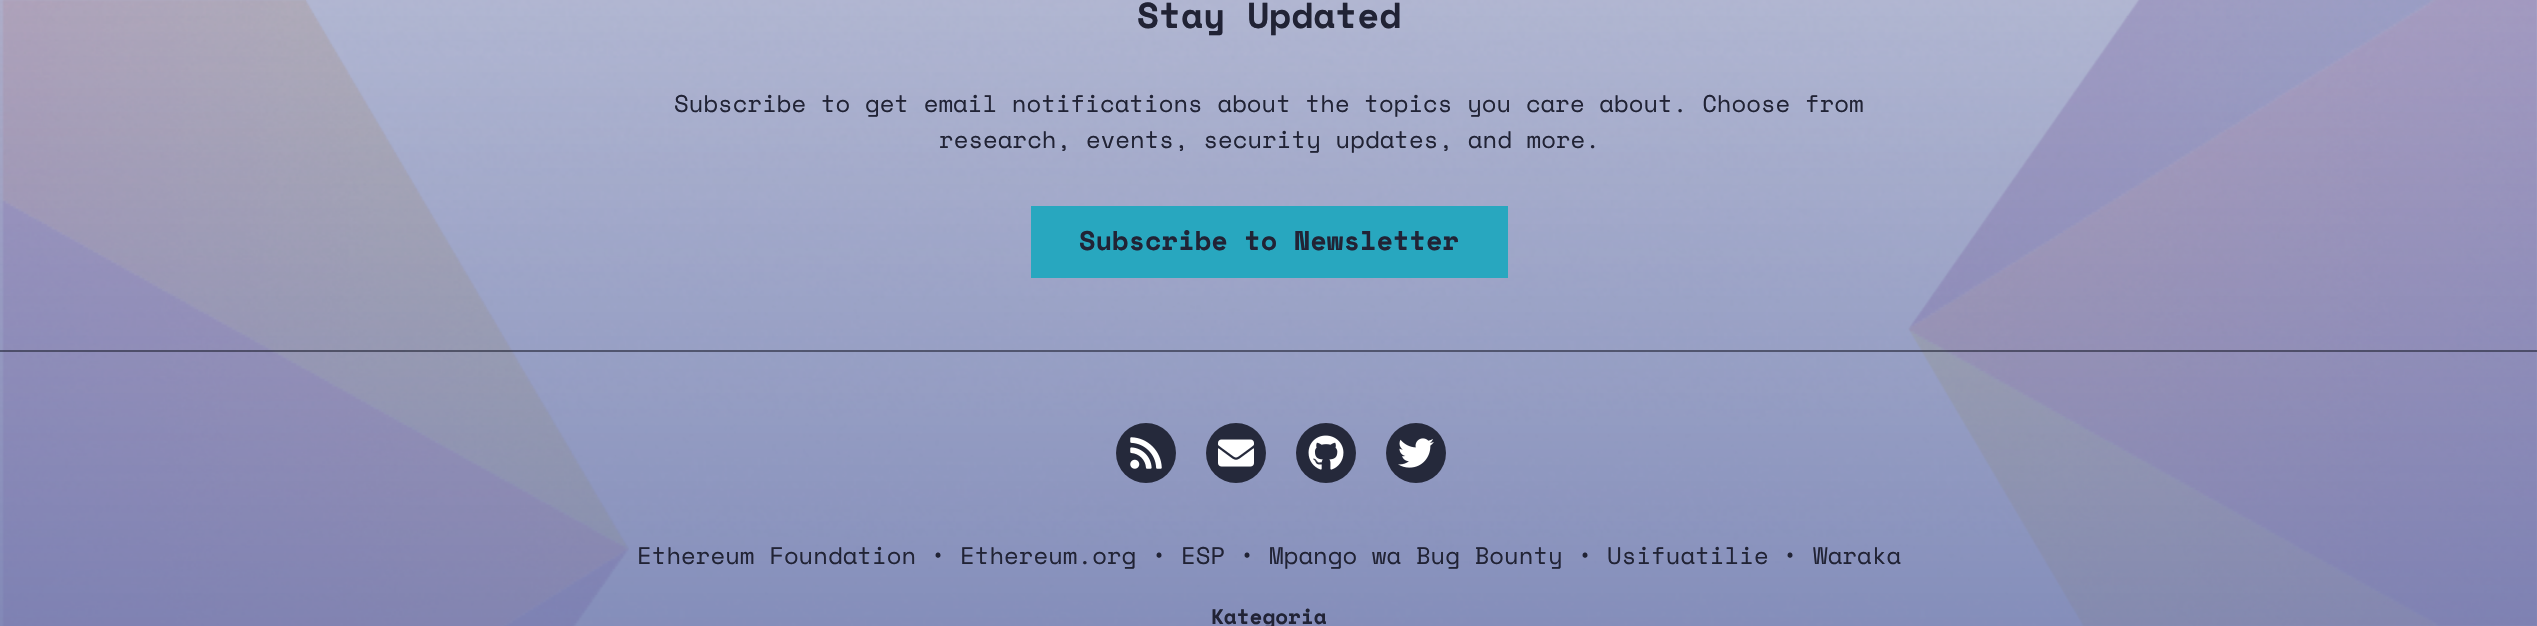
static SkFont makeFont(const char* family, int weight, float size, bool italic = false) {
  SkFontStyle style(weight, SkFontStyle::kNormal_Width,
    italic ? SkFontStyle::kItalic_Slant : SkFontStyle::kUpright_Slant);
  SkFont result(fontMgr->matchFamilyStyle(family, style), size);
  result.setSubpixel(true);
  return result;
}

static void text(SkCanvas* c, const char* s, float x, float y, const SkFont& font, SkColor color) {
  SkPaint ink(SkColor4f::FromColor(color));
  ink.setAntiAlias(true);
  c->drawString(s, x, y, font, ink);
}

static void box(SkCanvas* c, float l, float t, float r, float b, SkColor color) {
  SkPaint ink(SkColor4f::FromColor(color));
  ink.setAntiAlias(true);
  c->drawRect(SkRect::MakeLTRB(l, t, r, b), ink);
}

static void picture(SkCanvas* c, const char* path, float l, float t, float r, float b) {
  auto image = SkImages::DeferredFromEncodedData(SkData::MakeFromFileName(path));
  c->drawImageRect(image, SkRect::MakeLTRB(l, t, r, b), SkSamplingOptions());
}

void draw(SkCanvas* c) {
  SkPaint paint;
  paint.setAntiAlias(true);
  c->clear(0xfff7fafc);
  picture(c, "img_01.png", 0, 0, 2537, 626);
  picture(c, "img_02.png", 0, 0, 629, 626);
  picture(c, "img_03.png", 1908, 0, 2537, 626);
  {
    const SkColor colors[] = {0x66606da7, 0xd6606da7};
    const float stops[] = {0, 1};
    const SkPoint ends[] = {{1269, -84}, {1269, 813}};
    paint.setShader(SkGradientShader::MakeLinear(ends, colors, stops, 2, SkTileMode::kClamp));
    paint.setAlpha(255);
  }
  c->drawRect(SkRect::MakeLTRB(0, 0, 2537, 626), paint);
  SkFont face1 = makeFont("Space Mono", 700, 36);
  text(c, "Stay Updated", 1137, 28, face1, 0xff212335);
  SkFont face2 = makeFont("Space Mono", 400, 24);
  text(c, "Subscribe to get email notifications about the topics you care about. Choose from", 674, 112, face2, 0xff212335);
  text(c, "research, events, security updates, and more.", 939, 148, face2, 0xff212335);
  box(c, 1031, 206, 1508, 278, 0xff28a7bf);
  SkFont face3 = makeFont("Space Mono", 700, 27);
  text(c, "Subscribe to Newsletter", 1079, 250, face3, 0xff212335);
  box(c, 0, 350, 2537, 352, 0x99212335);
  paint.setShader(nullptr);
  paint.setColor(0xff25293b);
  c->drawCircle(1146, 453, 30, paint);
  picture(c, "img_04.png", 1130, 437, 1162, 469);
  c->drawCircle(1236, 453, 30, paint);
  picture(c, "img_05.png", 1218, 439, 1254, 467);
  c->drawCircle(1326, 453, 30, paint);
  picture(c, "img_06.png", 1308, 435, 1344, 470);
  c->drawCircle(1416, 453, 30, paint);
  picture(c, "img_07.png", 1398, 438, 1434, 468);
  text(c, "Ethereum Foundation", 637, 564, face2, 0xff212335);
  SkFont face4 = makeFont("Roboto", 400, 24);
  text(c, "•", 934, 564, face4, 0xff212335);
  text(c, "Ethereum.org", 960, 564, face2, 0xff212335);
  text(c, "•", 1155, 564, face4, 0xff212335);
  text(c, "ESP", 1181, 564, face2, 0xff212335);
  text(c, "•", 1243, 564, face4, 0xff212335);
  text(c, "Mpango wa Bug Bounty", 1269, 564, face2, 0xff212335);
  text(c, "•", 1581, 564, face4, 0xff212335);
  text(c, "Usifuatilie", 1607, 564, face2, 0xff212335);
  text(c, "•", 1786, 564, face4, 0xff212335);
  text(c, "Waraka", 1813, 564, face2, 0xff212335);
  SkFont face5 = makeFont("Space Mono", 700, 21);
  text(c, "Kategoria", 1211, 624, face5, 0xff212335);
}
